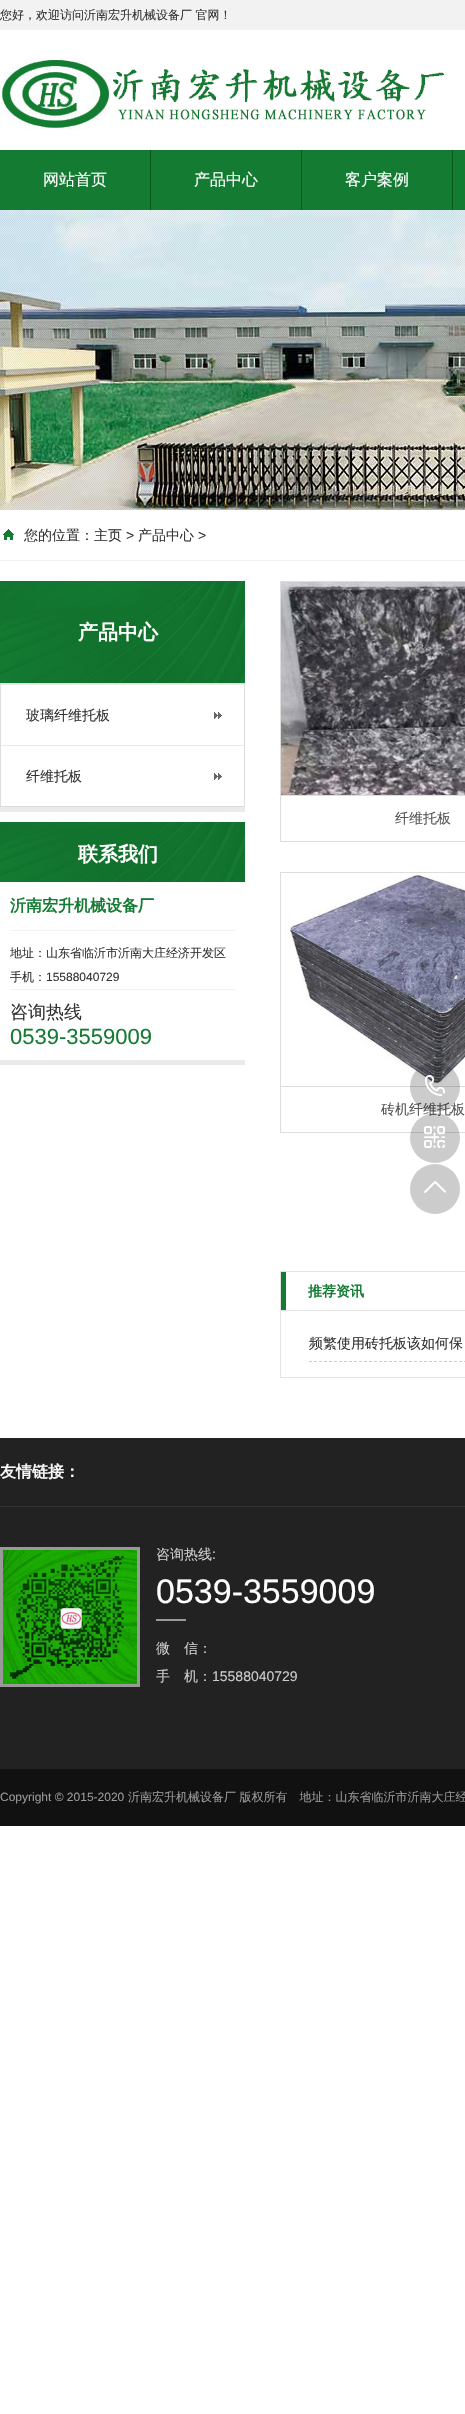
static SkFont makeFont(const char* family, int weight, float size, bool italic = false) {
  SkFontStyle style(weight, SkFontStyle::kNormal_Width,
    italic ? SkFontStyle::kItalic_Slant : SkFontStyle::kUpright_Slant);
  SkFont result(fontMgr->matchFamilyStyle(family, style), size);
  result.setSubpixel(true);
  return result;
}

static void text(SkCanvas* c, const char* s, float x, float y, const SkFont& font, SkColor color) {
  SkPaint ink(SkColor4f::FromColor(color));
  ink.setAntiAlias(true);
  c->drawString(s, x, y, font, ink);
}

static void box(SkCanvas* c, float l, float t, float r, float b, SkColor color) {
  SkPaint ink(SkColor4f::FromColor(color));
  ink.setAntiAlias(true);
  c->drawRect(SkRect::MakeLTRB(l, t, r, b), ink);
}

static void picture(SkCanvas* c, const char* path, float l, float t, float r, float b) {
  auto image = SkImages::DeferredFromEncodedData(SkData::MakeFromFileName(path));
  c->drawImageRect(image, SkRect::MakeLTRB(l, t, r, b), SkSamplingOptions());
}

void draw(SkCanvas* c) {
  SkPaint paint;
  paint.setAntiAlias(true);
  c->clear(0xffffffff);
  box(c, 0, 0, 465, 30, 0xfff2f2f2);
  SkFont face1 = makeFont("WenQuanYi Zen Hei", 500, 12);
  text(c, "您好，欢迎访问沂南宏升机械设备厂 官网！", 0, 19, face1, 0xff333333);
  picture(c, "img_01.png", 0, 58, 444, 130);
  box(c, 0, 150, 465, 210, 0xff147b32);
  box(c, 150, 150, 151, 210, 0xff08561a);
  SkFont face2 = makeFont("WenQuanYi Zen Hei", 500, 16);
  text(c, "网站首页", 43, 185, face2, 0xffffffff);
  box(c, 301, 150, 302, 210, 0xff08561a);
  text(c, "产品中心", 194, 185, face2, 0xffffffff);
  box(c, 452, 150, 453, 210, 0xff08561a);
  text(c, "客户案例", 345, 185, face2, 0xffffffff);
  picture(c, "img_02.png", 0, 210, 465, 510);
  box(c, 0, 560, 465, 561, 0xfff1f1f1);
  picture(c, "img_03.png", 3, 529, 14, 540);
  SkFont face3 = makeFont("WenQuanYi Zen Hei", 500, 14);
  text(c, "您的位置：主页", 24, 540, face3, 0xff333333);
  SkFont face4 = makeFont("Liberation Sans", 400, 14);
  text(c, ">", 126, 540, face4, 0xff333333);
  text(c, "产品中心", 138, 540, face3, 0xff333333);
  text(c, ">", 198, 540, face4, 0xff333333);
  box(c, 0, 807, 245, 812, 0xffeaeaea);
  picture(c, "img_04.png", 0, 581, 245, 683);
  SkFont face5 = makeFont("WenQuanYi Zen Hei", 700, 20);
  text(c, "产品中心", 78, 639, face5, 0xffffffff);
  paint.setStyle(SkPaint::kStroke_Style);
  paint.setStrokeWidth(1);
  paint.setColor(0xffdddddd);
  c->drawRect(SkRect::MakeLTRB(0.5f, 683.5f, 244.5f, 806.5f), paint);
  picture(c, "img_05.png", 214, 712, 222, 719);
  box(c, 1, 684, 244, 685, 0xffeaeaea);
  text(c, "玻璃纤维托板", 26, 720, face3, 0xff333333);
  picture(c, "img_05.png", 214, 773, 222, 780);
  box(c, 1, 745, 244, 746, 0xffeaeaea);
  text(c, "纤维托板", 26, 781, face3, 0xff333333);
  box(c, 0, 1060, 245, 1065, 0xffeaeaea);
  picture(c, "img_06.png", 0, 822, 245, 882);
  text(c, "联系我们", 78, 861, face5, 0xffffffff);
  box(c, 10, 930, 235, 931, 0xfff2f2f2);
  SkFont face6 = makeFont("WenQuanYi Zen Hei", 700, 16);
  text(c, "沂南宏升机械设备厂", 10, 911, face6, 0xff137c32);
  box(c, 10, 989, 235, 990, 0xfff2f2f2);
  text(c, "地址：山东省临沂市沂南大庄经济开发区", 10, 957, face1, 0xff333333);
  text(c, "手机：", 10, 981, face1, 0xff333333);
  SkFont face7 = makeFont("Liberation Sans", 400, 12);
  text(c, "15588040729", 46, 981, face7, 0xff333333);
  SkFont face8 = makeFont("WenQuanYi Zen Hei", 500, 18);
  text(c, "咨询热线", 10, 1018, face8, 0xff333333);
  SkFont face9 = makeFont("Liberation Sans", 400, 22);
  text(c, "0539-3559009", 10, 1044, face9, 0xff137c32);
  box(c, 280, 581, 465, 842, 0xffdddddd);
  picture(c, "img_07.png", 281, 582, 465, 795);
  box(c, 281, 796, 465, 841, 0xffffffff);
  text(c, "纤维托板", 395, 823, face3, 0xff555555);
  box(c, 280, 872, 465, 1133, 0xffdddddd);
  picture(c, "img_08.png", 281, 873, 465, 1086);
  box(c, 281, 1087, 465, 1132, 0xffffffff);
  text(c, "砖机纤维托板", 381, 1114, face3, 0xff555555);
  paint.setColor(0xffe4e4e4);
  c->drawRect(SkRect::MakeLTRB(280.5f, 1271.5f, 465.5f, 1310.5f), paint);
  box(c, 281, 1272, 286, 1310, 0xff137c32);
  SkFont face10 = makeFont("WenQuanYi Zen Hei", 700, 14);
  text(c, "推荐资讯", 308, 1296, face10, 0xff137c32);
  box(c, 280, 1377, 465, 1378, 0xffe4e4e4);
  box(c, 280, 1311, 281, 1378, 0xffe4e4e4);
  paint.setColor(0xffcccccc);
  paint.setPathEffect(SkDashPathEffect::Make({{3, 2}}, 0));
  c->drawPath(SkPathBuilder().moveTo(309, 1361.5f).lineTo(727, 1361.5f).detach(), paint);
  paint.setPathEffect(nullptr);
  text(c, "频繁使用砖托板该如何保", 309, 1348, face3, 0xff333333);
  picture(c, "img_09.png", 410, 1062, 460, 1112);
  picture(c, "img_10.png", 425, 1075, 445, 1096);
  picture(c, "img_11.png", 410, 1113, 460, 1163);
  picture(c, "img_12.png", 424, 1126, 445, 1148);
  picture(c, "img_13.png", 410, 1164, 460, 1214);
  picture(c, "img_14.png", 424, 1181, 446, 1193);
  box(c, 0, 1438, 465, 1769, 0xff222222);
  box(c, 0, 1506, 465, 1507, 0xff333333);
  text(c, "友情链接：", 0, 1477, face6, 0xfff9f9f9);
  paint.setStrokeWidth(3);
  paint.setColor(0xff999999);
  c->drawRect(SkRect::MakeLTRB(1.5f, 1548.5f, 138.5f, 1685.5f), paint);
  picture(c, "img_15.png", 3, 1550, 137, 1684);
  text(c, "咨询热线", 156, 1559, face3, 0xffcccccc);
  text(c, ":", 212, 1559, face4, 0xffcccccc);
  SkFont face11 = makeFont("Liberation Sans", 400, 34);
  text(c, "0539-3559009", 156, 1603, face11, 0xffffffff);
  box(c, 156, 1619, 186, 1621, 0xff999999);
  text(c, "微　信：", 156, 1653, face3, 0xffcccccc);
  text(c, "手　机：", 156, 1681, face3, 0xffcccccc);
  text(c, "15588040729", 212, 1681, face4, 0xffcccccc);
  box(c, 0, 1769, 465, 1826, 0xff111111);
  text(c, "Copyright © 2015-2020", 0, 1801, face7, 0xff999999);
  text(c, "沂南宏升机械设备厂 版权所有　地址：山东省临沂市沂南大庄经", 128, 1801, face1, 0xff999999);
}
